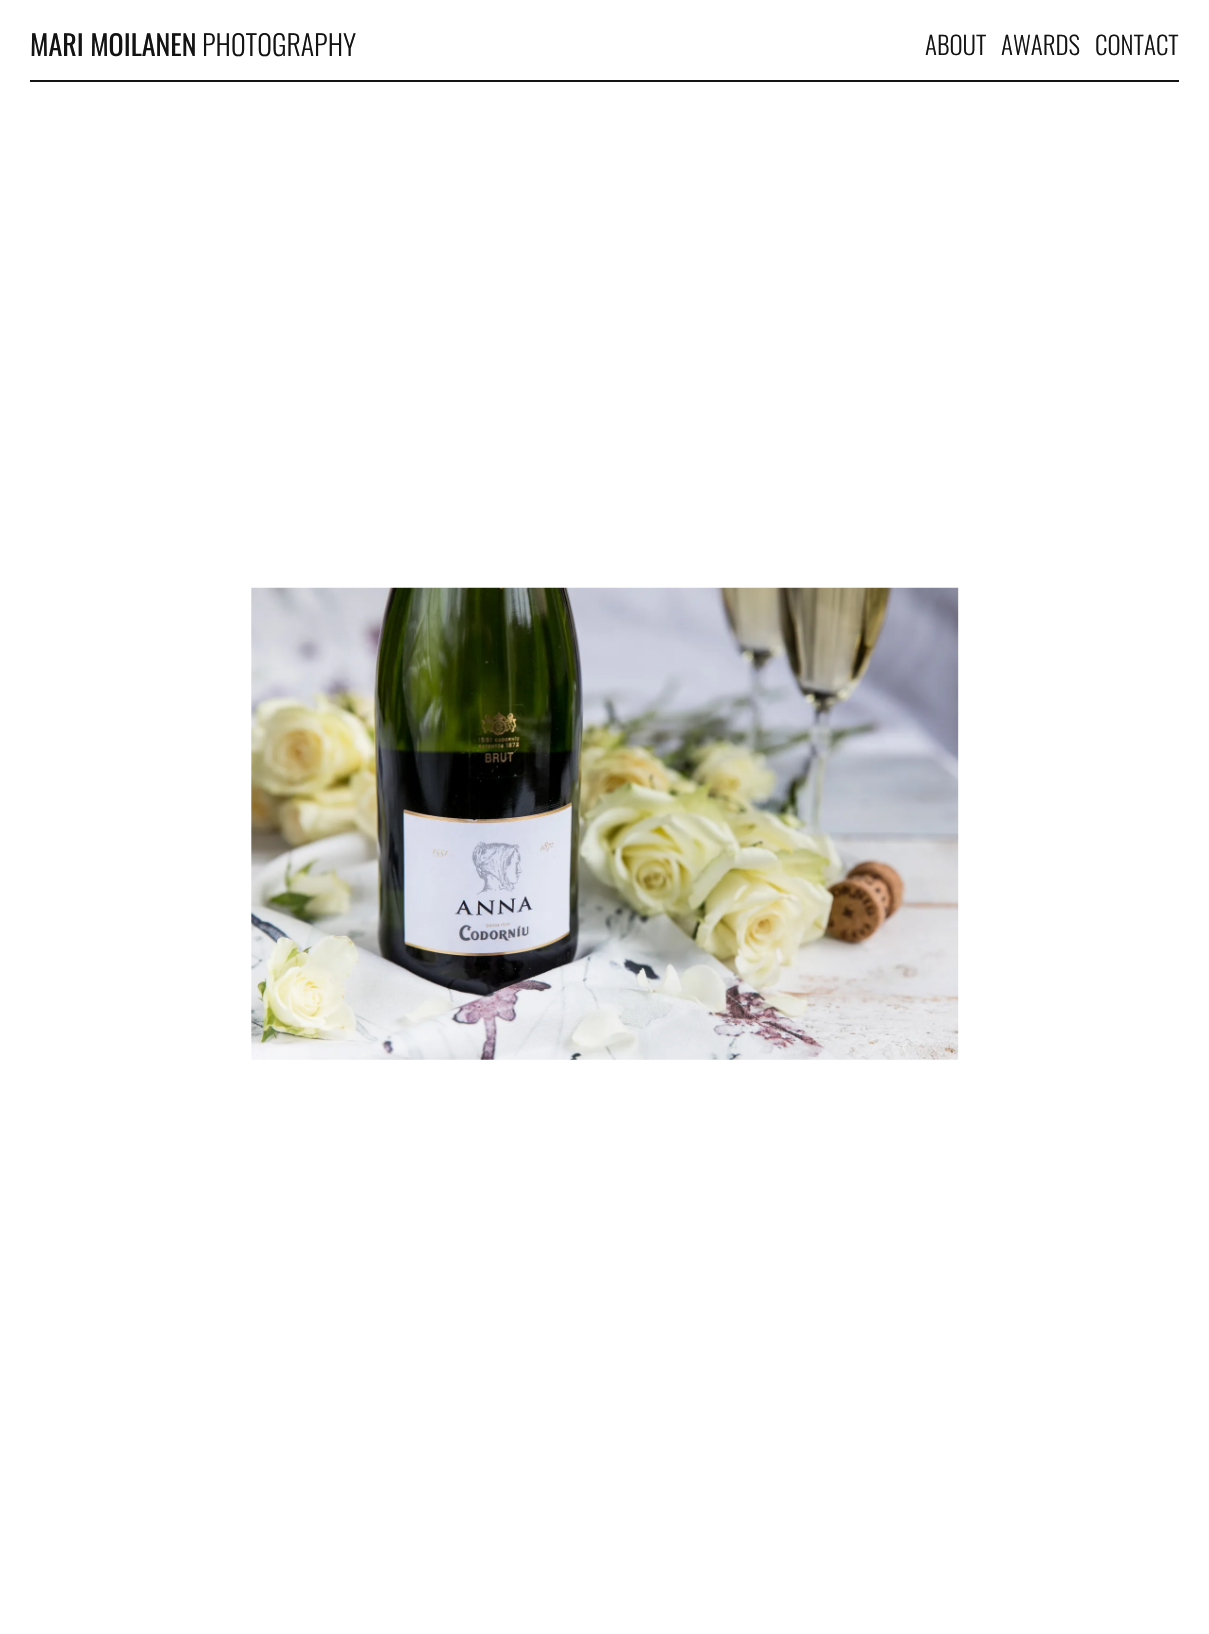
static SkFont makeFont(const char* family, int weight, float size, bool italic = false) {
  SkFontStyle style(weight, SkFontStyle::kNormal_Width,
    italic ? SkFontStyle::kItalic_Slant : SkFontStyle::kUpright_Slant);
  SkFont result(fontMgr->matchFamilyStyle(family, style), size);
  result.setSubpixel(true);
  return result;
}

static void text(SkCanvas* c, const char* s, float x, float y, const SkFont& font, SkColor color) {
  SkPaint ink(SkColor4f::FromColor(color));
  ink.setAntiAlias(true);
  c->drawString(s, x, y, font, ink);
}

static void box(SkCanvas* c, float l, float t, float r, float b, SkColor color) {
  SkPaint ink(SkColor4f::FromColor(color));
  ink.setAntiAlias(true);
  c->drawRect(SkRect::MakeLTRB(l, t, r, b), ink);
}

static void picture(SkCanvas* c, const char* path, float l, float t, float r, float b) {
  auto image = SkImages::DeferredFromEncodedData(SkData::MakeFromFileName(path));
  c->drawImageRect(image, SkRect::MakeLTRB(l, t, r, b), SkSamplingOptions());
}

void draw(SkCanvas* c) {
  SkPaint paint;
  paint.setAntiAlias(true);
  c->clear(0xffffffff);
  box(c, 30, 80, 1179, 82, 0xff131313);
  SkFont face1 = makeFont("Oswald", 400, 28);
  text(c, "MARI MOILANEN", 30, 56, face1, 0xff131313);
  SkFont face2 = makeFont("Oswald", 300, 28);
  text(c, "PHOTOGRAPHY", 202, 56, face2, 0xff131313);
  SkFont face3 = makeFont("Oswald", 300, 25);
  text(c, "ABOUT", 925, 55, face3, 0xff131313);
  text(c, "AWARDS", 1001, 55, face3, 0xff131313);
  text(c, "CONTACT", 1095, 55, face3, 0xff131313);
  picture(c, "img_01.png", 251, 587, 959, 1060);
}
